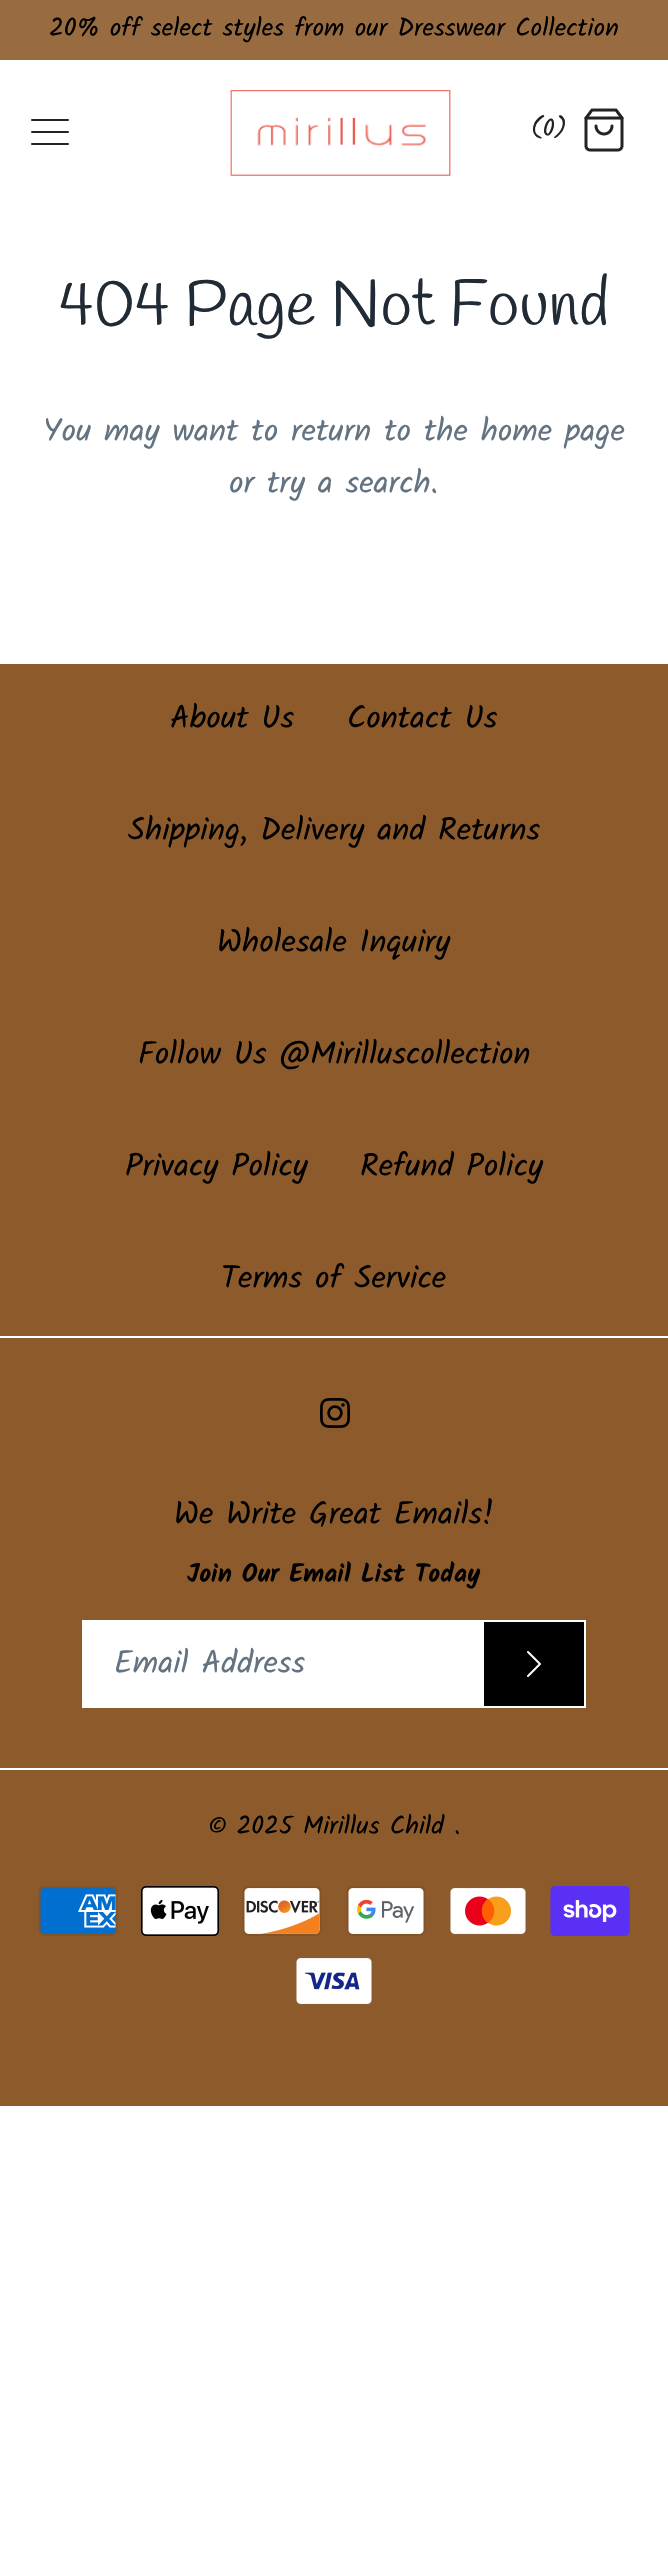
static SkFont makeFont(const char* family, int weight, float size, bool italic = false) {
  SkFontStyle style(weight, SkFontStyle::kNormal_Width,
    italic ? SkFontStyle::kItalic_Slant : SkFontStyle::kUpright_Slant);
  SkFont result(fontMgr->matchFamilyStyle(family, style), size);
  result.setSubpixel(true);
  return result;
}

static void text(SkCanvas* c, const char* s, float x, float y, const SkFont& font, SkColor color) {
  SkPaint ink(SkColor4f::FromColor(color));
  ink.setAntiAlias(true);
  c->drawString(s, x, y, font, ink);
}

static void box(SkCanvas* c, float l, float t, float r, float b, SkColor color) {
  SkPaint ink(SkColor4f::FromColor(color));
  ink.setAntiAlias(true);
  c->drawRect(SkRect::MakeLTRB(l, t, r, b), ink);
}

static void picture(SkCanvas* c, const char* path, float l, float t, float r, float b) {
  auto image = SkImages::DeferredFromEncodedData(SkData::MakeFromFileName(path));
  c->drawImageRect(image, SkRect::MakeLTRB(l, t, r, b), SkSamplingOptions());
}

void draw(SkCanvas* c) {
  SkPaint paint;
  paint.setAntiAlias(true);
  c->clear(0xffffffff);
  box(c, 0, 0, 668, 60, 0xff986b40);
  SkFont face1 = makeFont("Kalam", 400, 25.6f);
  text(c, "20% off select styles from our Dresswear Collection", 49, 36, face1, 0xff000000);
  paint.setStyle(SkPaint::kStroke_Style);
  paint.setStrokeWidth(2);
  paint.setStrokeCap(SkPaint::kRound_Cap);
  paint.setStrokeJoin(SkPaint::kRound_Join);
  paint.setColor(0xff232323);
  c->drawPath(SkPathBuilder().moveTo(32, 132).lineTo(68, 132).moveTo(32, 120).lineTo(68, 120).moveTo(32, 144).lineTo(68, 144).detach(), paint);
  picture(c, "img_01.png", 230, 90, 451, 176);
  SkFont face2 = makeFont("Kalam", 400, 24);
  text(c, "(0)", 531, 136, face2, 0xff232323);
  picture(c, "img_02.png", 584, 108, 624, 152);
  SkFont face3 = makeFont("Handlee", 400, 64);
  text(c, "404 Page Not Found", 59, 325, face3, 0xff212b36);
  SkFont face4 = makeFont("Kalam", 400, 32);
  text(c, "You may want to return to the home page", 43, 441, face4, 0xff637381);
  text(c, "or try a search.", 229, 493, face4, 0xff637381);
  box(c, 0, 664, 668, 2106, 0xff8c5a2b);
  box(c, 0, 1336, 668, 1338, 0xffffffff);
  text(c, "About Us", 170, 728, face4, 0xff000000);
  text(c, "Contact Us", 347, 728, face4, 0xff000000);
  text(c, "Shipping, Delivery and Returns", 128, 840, face4, 0xff000000);
  text(c, "Wholesale Inquiry", 217, 952, face4, 0xff000000);
  text(c, "Follow Us @Mirilluscollection", 138, 1064, face4, 0xff000000);
  text(c, "Privacy Policy", 125, 1176, face4, 0xff000000);
  text(c, "Refund Policy", 360, 1176, face4, 0xff000000);
  text(c, "Terms of Service", 221, 1288, face4, 0xff000000);
  picture(c, "img_03.png", 320, 1398, 350, 1428);
  box(c, 0, 1768, 668, 1770, 0xffffffff);
  text(c, "We Write Great Emails!", 174, 1524, face4, 0xff000000);
  SkFont face5 = makeFont("Kalam", 700, 25.6f);
  text(c, "Join Our Email List Today", 187, 1582, face5, 0xff000000);
  box(c, 82, 1620, 586, 1708, 0xffffffff);
  text(c, "Email Address", 114, 1673, face4, 0xff637381);
  box(c, 484, 1622, 584, 1706, 0xff000000);
  paint.setColor(0xffffffff);
  c->drawPath(SkPathBuilder().moveTo(528, 1676).lineTo(540, 1664).lineTo(528, 1652).detach(), paint);
  text(c, "© 2025 Mirillus Child .", 208, 1834, face1, 0xff000000);
  picture(c, "img_04.png", 38, 1886, 118, 1936);
  picture(c, "img_05.png", 140, 1886, 220, 1936);
  picture(c, "img_06.png", 242, 1886, 322, 1936);
  picture(c, "img_07.png", 346, 1886, 426, 1936);
  picture(c, "img_08.png", 449, 1886, 527, 1936);
  picture(c, "img_09.png", 550, 1886, 630, 1936);
  picture(c, "img_10.png", 295, 1956, 373, 2006);
}
